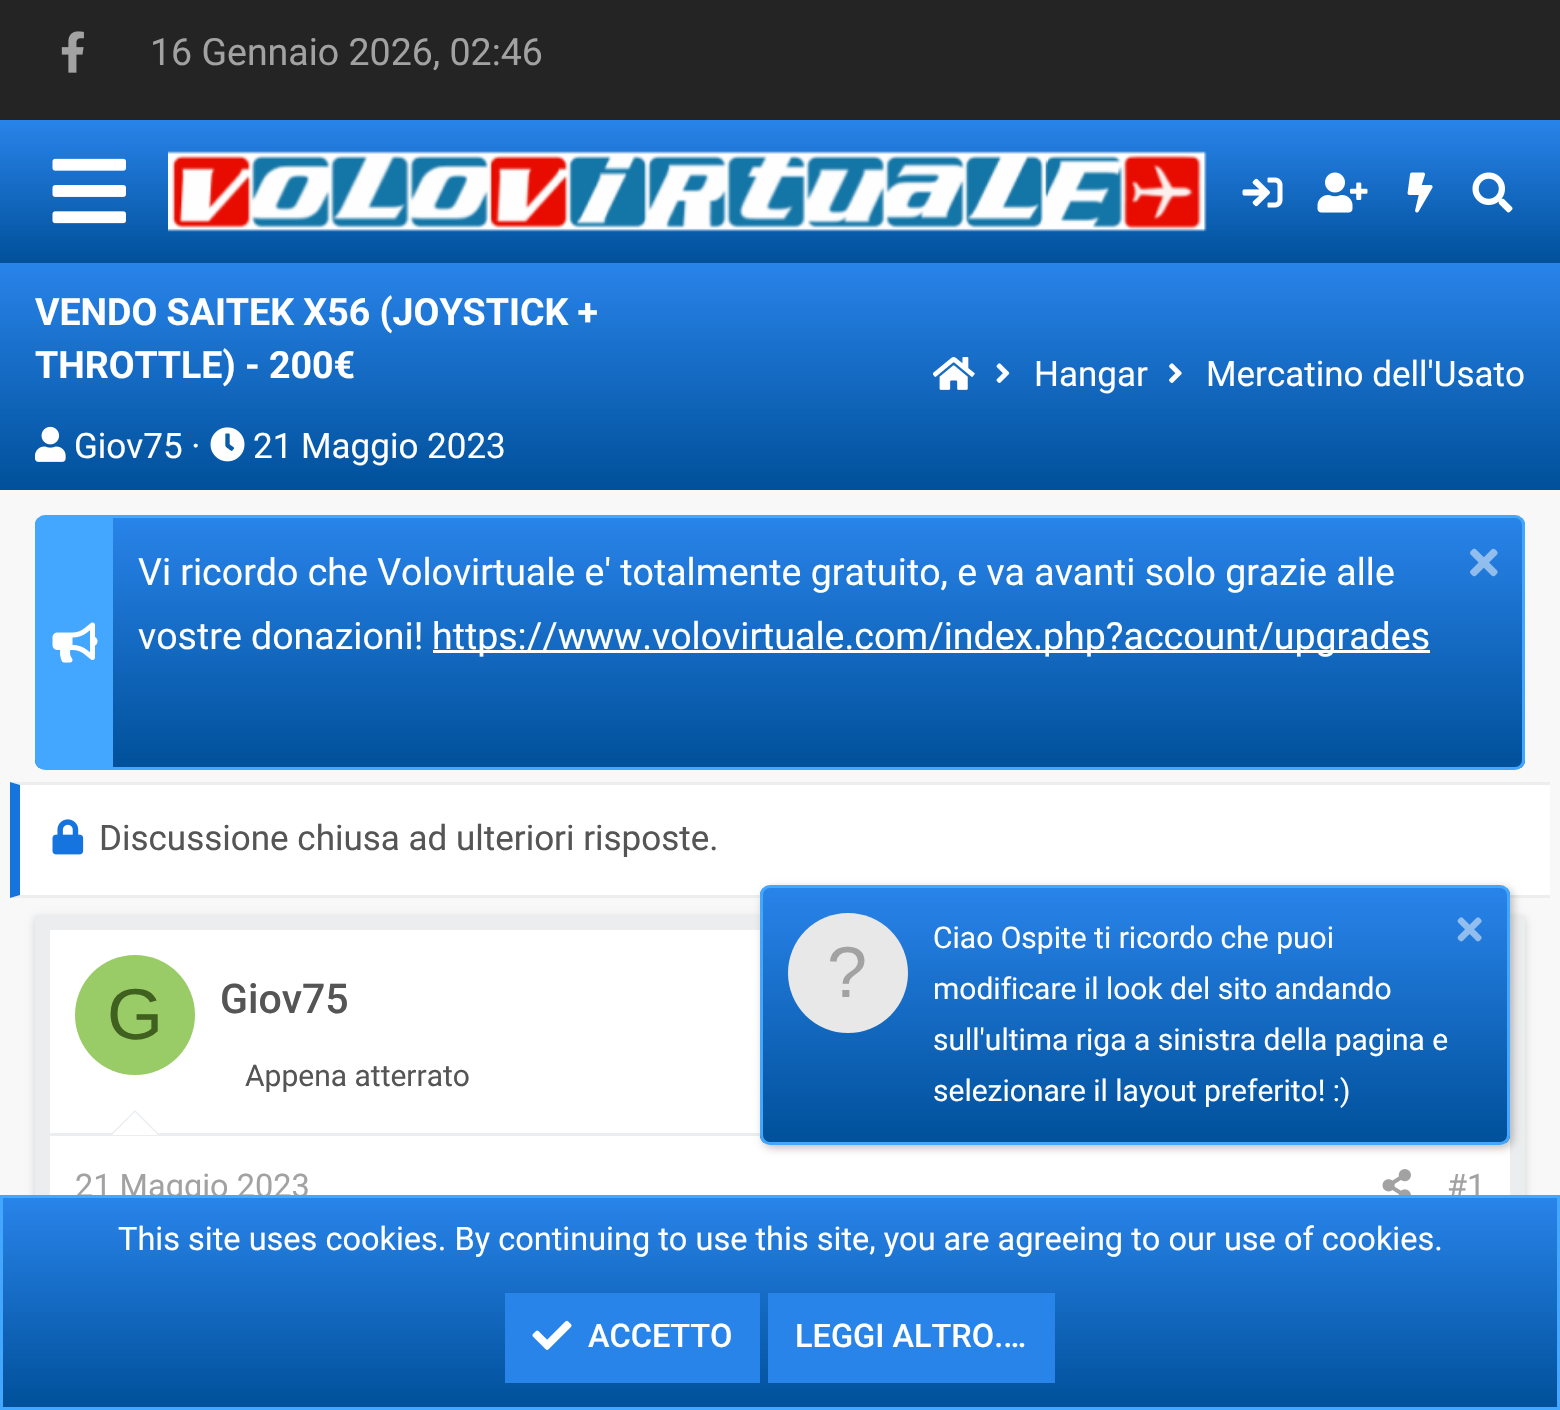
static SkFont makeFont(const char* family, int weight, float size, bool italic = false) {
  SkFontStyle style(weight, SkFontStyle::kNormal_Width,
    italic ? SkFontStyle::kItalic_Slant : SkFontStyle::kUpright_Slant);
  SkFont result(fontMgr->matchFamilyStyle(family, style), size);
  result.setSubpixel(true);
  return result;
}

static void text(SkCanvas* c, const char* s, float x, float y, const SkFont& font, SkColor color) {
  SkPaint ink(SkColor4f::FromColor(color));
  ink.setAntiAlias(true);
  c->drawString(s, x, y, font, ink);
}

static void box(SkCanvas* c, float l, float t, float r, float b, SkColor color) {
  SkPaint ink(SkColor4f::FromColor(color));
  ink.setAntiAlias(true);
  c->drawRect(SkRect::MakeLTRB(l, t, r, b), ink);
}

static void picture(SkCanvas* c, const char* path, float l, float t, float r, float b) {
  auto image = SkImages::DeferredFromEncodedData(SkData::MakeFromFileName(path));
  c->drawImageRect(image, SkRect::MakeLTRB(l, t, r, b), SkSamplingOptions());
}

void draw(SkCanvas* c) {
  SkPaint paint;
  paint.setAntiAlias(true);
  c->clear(0xfff8f8f8);
  box(c, 0, 0, 1560, 120, 0xff242424);
  picture(c, "img_01.png", 61, 31, 84, 73);
  SkFont face1 = makeFont("Roboto", 400, 37.5f);
  text(c, "16 Gennaio 2026, 02:46", 150, 65, face1, 0xffa2a2a2);
  {
    const SkColor colors[] = {0xff2984ea, 0xff00509a};
    const float stops[] = {0, 1};
    const SkPoint ends[] = {{780, 120}, {780, 263}};
    paint.setShader(SkGradientShader::MakeLinear(ends, colors, stops, 2, SkTileMode::kClamp));
    paint.setAlpha(255);
  }
  c->drawRect(SkRect::MakeLTRB(0, 120, 1560, 263), paint);
  picture(c, "img_02.png", 52, 158, 126, 224);
  picture(c, "img_03.png", 168, 151, 1207, 232);
  picture(c, "img_04.png", 1242, 177, 1283, 208);
  picture(c, "img_05.png", 1317, 172, 1368, 213);
  picture(c, "img_06.png", 1407, 172, 1433, 213);
  picture(c, "img_07.png", 1472, 172, 1513, 213);
  {
    const SkColor colors[] = {0xff2984ea, 0xff00509a};
    const float stops[] = {0, 1};
    const SkPoint ends[] = {{780, 262}, {780, 490}};
    paint.setShader(SkGradientShader::MakeLinear(ends, colors, stops, 2, SkTileMode::kClamp));
    paint.setAlpha(255);
  }
  c->drawRect(SkRect::MakeLTRB(0, 263, 1560, 490), paint);
  SkFont face2 = makeFont("Roboto", 700, 37.5f);
  text(c, "VENDO SAITEK X56 (JOYSTICK +", 35, 325, face2, 0xffffffff);
  text(c, "THROTTLE) - 200€", 35, 378, face2, 0xffffffff);
  picture(c, "img_08.png", 35, 426, 66, 462);
  SkFont face3 = makeFont("Roboto", 400, 35);
  text(c, "Giov75 ·", 74, 458, face3, 0xffffffff);
  picture(c, "img_09.png", 210, 427, 245, 462);
  text(c, "21 Maggio 2023", 253, 458, face3, 0xffffffff);
  picture(c, "img_10.png", 933, 357, 975, 390);
  picture(c, "img_11.png", 996, 363, 1010, 383);
  text(c, "Hangar", 1034, 386, face3, 0xffffffff);
  picture(c, "img_12.png", 1169, 363, 1182, 383);
  text(c, "Mercatino dell'Usato", 1206, 386, face3, 0xffffffff);
  c->save();
  c->clipPath(SkPathBuilder().moveTo(45, 515).lineTo(1515, 515).cubicTo(1520.5f, 515, 1525, 519.5f, 1525, 525).lineTo(1525, 760).cubicTo(1525, 765.5f, 1520.5f, 770, 1515, 770).lineTo(45, 770).cubicTo(39.5f, 770, 35, 765.5f, 35, 760).lineTo(35, 525).cubicTo(35, 519.5f, 39.5f, 515, 45, 515).close().detach(), true);
  {
    const SkColor colors[] = {0xff2984ea, 0xff00509a};
    const float stops[] = {0, 1};
    const SkPoint ends[] = {{780, 517}, {780, 768}};
    paint.setShader(SkGradientShader::MakeLinear(ends, colors, stops, 2, SkTileMode::kClamp));
    paint.setAlpha(255);
  }
  c->drawRect(SkRect::MakeLTRB(35, 518, 1525, 768), paint);
  c->restore();
  paint.setStyle(SkPaint::kStroke_Style);
  paint.setStrokeWidth(3);
  paint.setShader(nullptr);
  paint.setColor(0xff43a7ff);
  c->drawRoundRect(SkRect::MakeLTRB(36.5f, 516.5f, 1523.5f, 768.5f), 8.5f, 8.5f, paint);
  box(c, 38, 518, 113, 768, 0xff43a7ff);
  picture(c, "img_13.png", 52, 622, 98, 663);
  text(c, "Vi ricordo che Volovirtuale e' totalmente gratuito, e va avanti solo grazie alle", 138, 585, face1, 0xffffffff);
  picture(c, "img_14.png", 1470, 548, 1498, 577);
  text(c, "vostre donazioni!", 138, 649, face1, 0xffffffff);
  box(c, 433, 650, 1430, 653, 0xffffffff);
  text(c, "https://www.volovirtuale.com/index.php?account/upgrades", 432, 649, face1, 0xffffffff);
  box(c, 10, 783, 1550, 898, 0xffffffff);
  paint.setStyle(SkPaint::kFill_Style);
  paint.setColor(0xffecedef);
  c->drawPath(SkPathBuilder().moveTo(10, 782).lineTo(1550, 782).lineTo(1550, 785).lineTo(20, 785).close().detach(), paint);
  c->drawPath(SkPathBuilder().moveTo(1550, 898).lineTo(10, 898).lineTo(20, 895).lineTo(1550, 895).close().detach(), paint);
  paint.setColor(0xff1674df);
  c->drawPath(SkPathBuilder().moveTo(10, 898).lineTo(10, 782).lineTo(20, 785).lineTo(20, 895).close().detach(), paint);
  picture(c, "img_15.png", 52, 819, 84, 855);
  text(c, "Discussione chiusa ad ulteriori risposte.", 99, 850, face3, 0xff555555);
  paint.setColor(0x26000000);
  paint.setMaskFilter(SkMaskFilter::MakeBlur(kNormal_SkBlurStyle, 4));
  c->drawRect(SkRect::MakeLTRB(35, 918, 1525, 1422), paint);
  paint.setMaskFilter(nullptr);
  box(c, 50, 930, 1510, 1195, 0xffffffff);
  paint.setStyle(SkPaint::kStroke_Style);
  paint.setStrokeWidth(15);
  paint.setColor(0xffecedef);
  c->drawRect(SkRect::MakeLTRB(42.5f, 922.5f, 1517.5f, 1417.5f), paint);
  box(c, 50, 1133, 1510, 1136, 0xffecedef);
  paint.setStyle(SkPaint::kFill_Style);
  paint.setColor(0xff99cc66);
  c->drawCircle(135, 1015, 60, paint);
  SkFont face4 = makeFont("Liberation Sans", 400, 72);
  text(c, "G", 107, 1039, face4, 0xff406020);
  SkFont face5 = makeFont("Roboto", 500, 41);
  text(c, "Giov75", 220, 1013, face5, 0xff555555);
  SkFont face6 = makeFont("Roboto", 400, 30);
  text(c, "Appena atterrato", 245, 1086, face6, 0xff555555);
  paint.setColor(0xffecedef);
  c->drawPath(SkPathBuilder().moveTo(160, 1135).lineTo(110, 1135).lineTo(135, 1110).close().detach(), paint);
  paint.setColor(0xffffffff);
  c->drawPath(SkPathBuilder().moveTo(158, 1135).lineTo(112, 1135).lineTo(135, 1112).close().detach(), paint);
  SkFont face7 = makeFont("Roboto", 400, 32.5f);
  text(c, "21 Maggio 2023", 75, 1197, face7, 0xffa2a2a2);
  picture(c, "img_16.png", 1382, 1169, 1411, 1195);
  text(c, "#1", 1447, 1197, face7, 0xffa2a2a2);
  paint.setColor(0x40000000);
  paint.setMaskFilter(SkMaskFilter::MakeBlur(kNormal_SkBlurStyle, 4));
  c->drawRoundRect(SkRect::MakeLTRB(763, 888, 1513, 1148), 10, 10, paint);
  paint.setMaskFilter(nullptr);
  c->save();
  c->clipPath(SkPathBuilder().moveTo(770, 885).lineTo(1500, 885).cubicTo(1505.5f, 885, 1510, 889.5f, 1510, 895).lineTo(1510, 1135).cubicTo(1510, 1140.5f, 1505.5f, 1145, 1500, 1145).lineTo(770, 1145).cubicTo(764.5f, 1145, 760, 1140.5f, 760, 1135).lineTo(760, 895).cubicTo(760, 889.5f, 764.5f, 885, 770, 885).close().detach(), true);
  {
    const SkColor colors[] = {0xff2984ea, 0xff00509a};
    const float stops[] = {0, 1};
    const SkPoint ends[] = {{1135, 888}, {1135, 1143}};
    paint.setShader(SkGradientShader::MakeLinear(ends, colors, stops, 2, SkTileMode::kClamp));
    paint.setAlpha(255);
  }
  c->drawRect(SkRect::MakeLTRB(760, 888, 1510, 1143), paint);
  c->restore();
  paint.setStyle(SkPaint::kStroke_Style);
  paint.setStrokeWidth(3);
  paint.setShader(nullptr);
  paint.setColor(0xff43a7ff);
  c->drawRoundRect(SkRect::MakeLTRB(761.5f, 886.5f, 1508.5f, 1143.5f), 8.5f, 8.5f, paint);
  paint.setStyle(SkPaint::kFill_Style);
  paint.setColor(0xffe8e8e8);
  c->drawCircle(848, 973, 60, paint);
  text(c, "?", 827, 997, face4, 0xffa2a2a2);
  text(c, "Ciao Ospite ti ricordo che puoi", 933, 948, face6, 0xffffffff);
  picture(c, "img_17.png", 1457, 917, 1482, 942);
  text(c, "modificare il look del sito andando", 933, 999, face6, 0xffffffff);
  text(c, "sull'ultima riga a sinistra della pagina e", 933, 1050, face6, 0xffffffff);
  text(c, "selezionare il layout preferito! :)", 933, 1101, face6, 0xffffffff);
  {
    const SkColor colors[] = {0xff2984ea, 0xff00509a};
    const float stops[] = {0, 1};
    const SkPoint ends[] = {{780, 1197}, {780, 1408}};
    paint.setShader(SkGradientShader::MakeLinear(ends, colors, stops, 2, SkTileMode::kClamp));
    paint.setAlpha(255);
  }
  c->drawRect(SkRect::MakeLTRB(3, 1198, 1557, 1407), paint);
  paint.setStyle(SkPaint::kStroke_Style);
  paint.setShader(nullptr);
  paint.setColor(0xff43a7ff);
  c->drawRect(SkRect::MakeLTRB(1.5f, 1196.5f, 1558.5f, 1408.5f), paint);
  text(c, "This site uses cookies. By continuing to use this site, you are agreeing to our use of cookies.", 118, 1250, face7, 0xffffffff);
  box(c, 505, 1293, 760, 1383, 0xff2984ea);
  picture(c, "img_18.png", 532, 1320, 572, 1350);
  SkFont face8 = makeFont("Roboto", 500, 32.5f);
  text(c, "ACCETTO", 588, 1347, face8, 0xffffffff);
  box(c, 768, 1293, 1055, 1383, 0xff2984ea);
  text(c, "LEGGI ALTRO.…", 795, 1347, face8, 0xffffffff);
}
